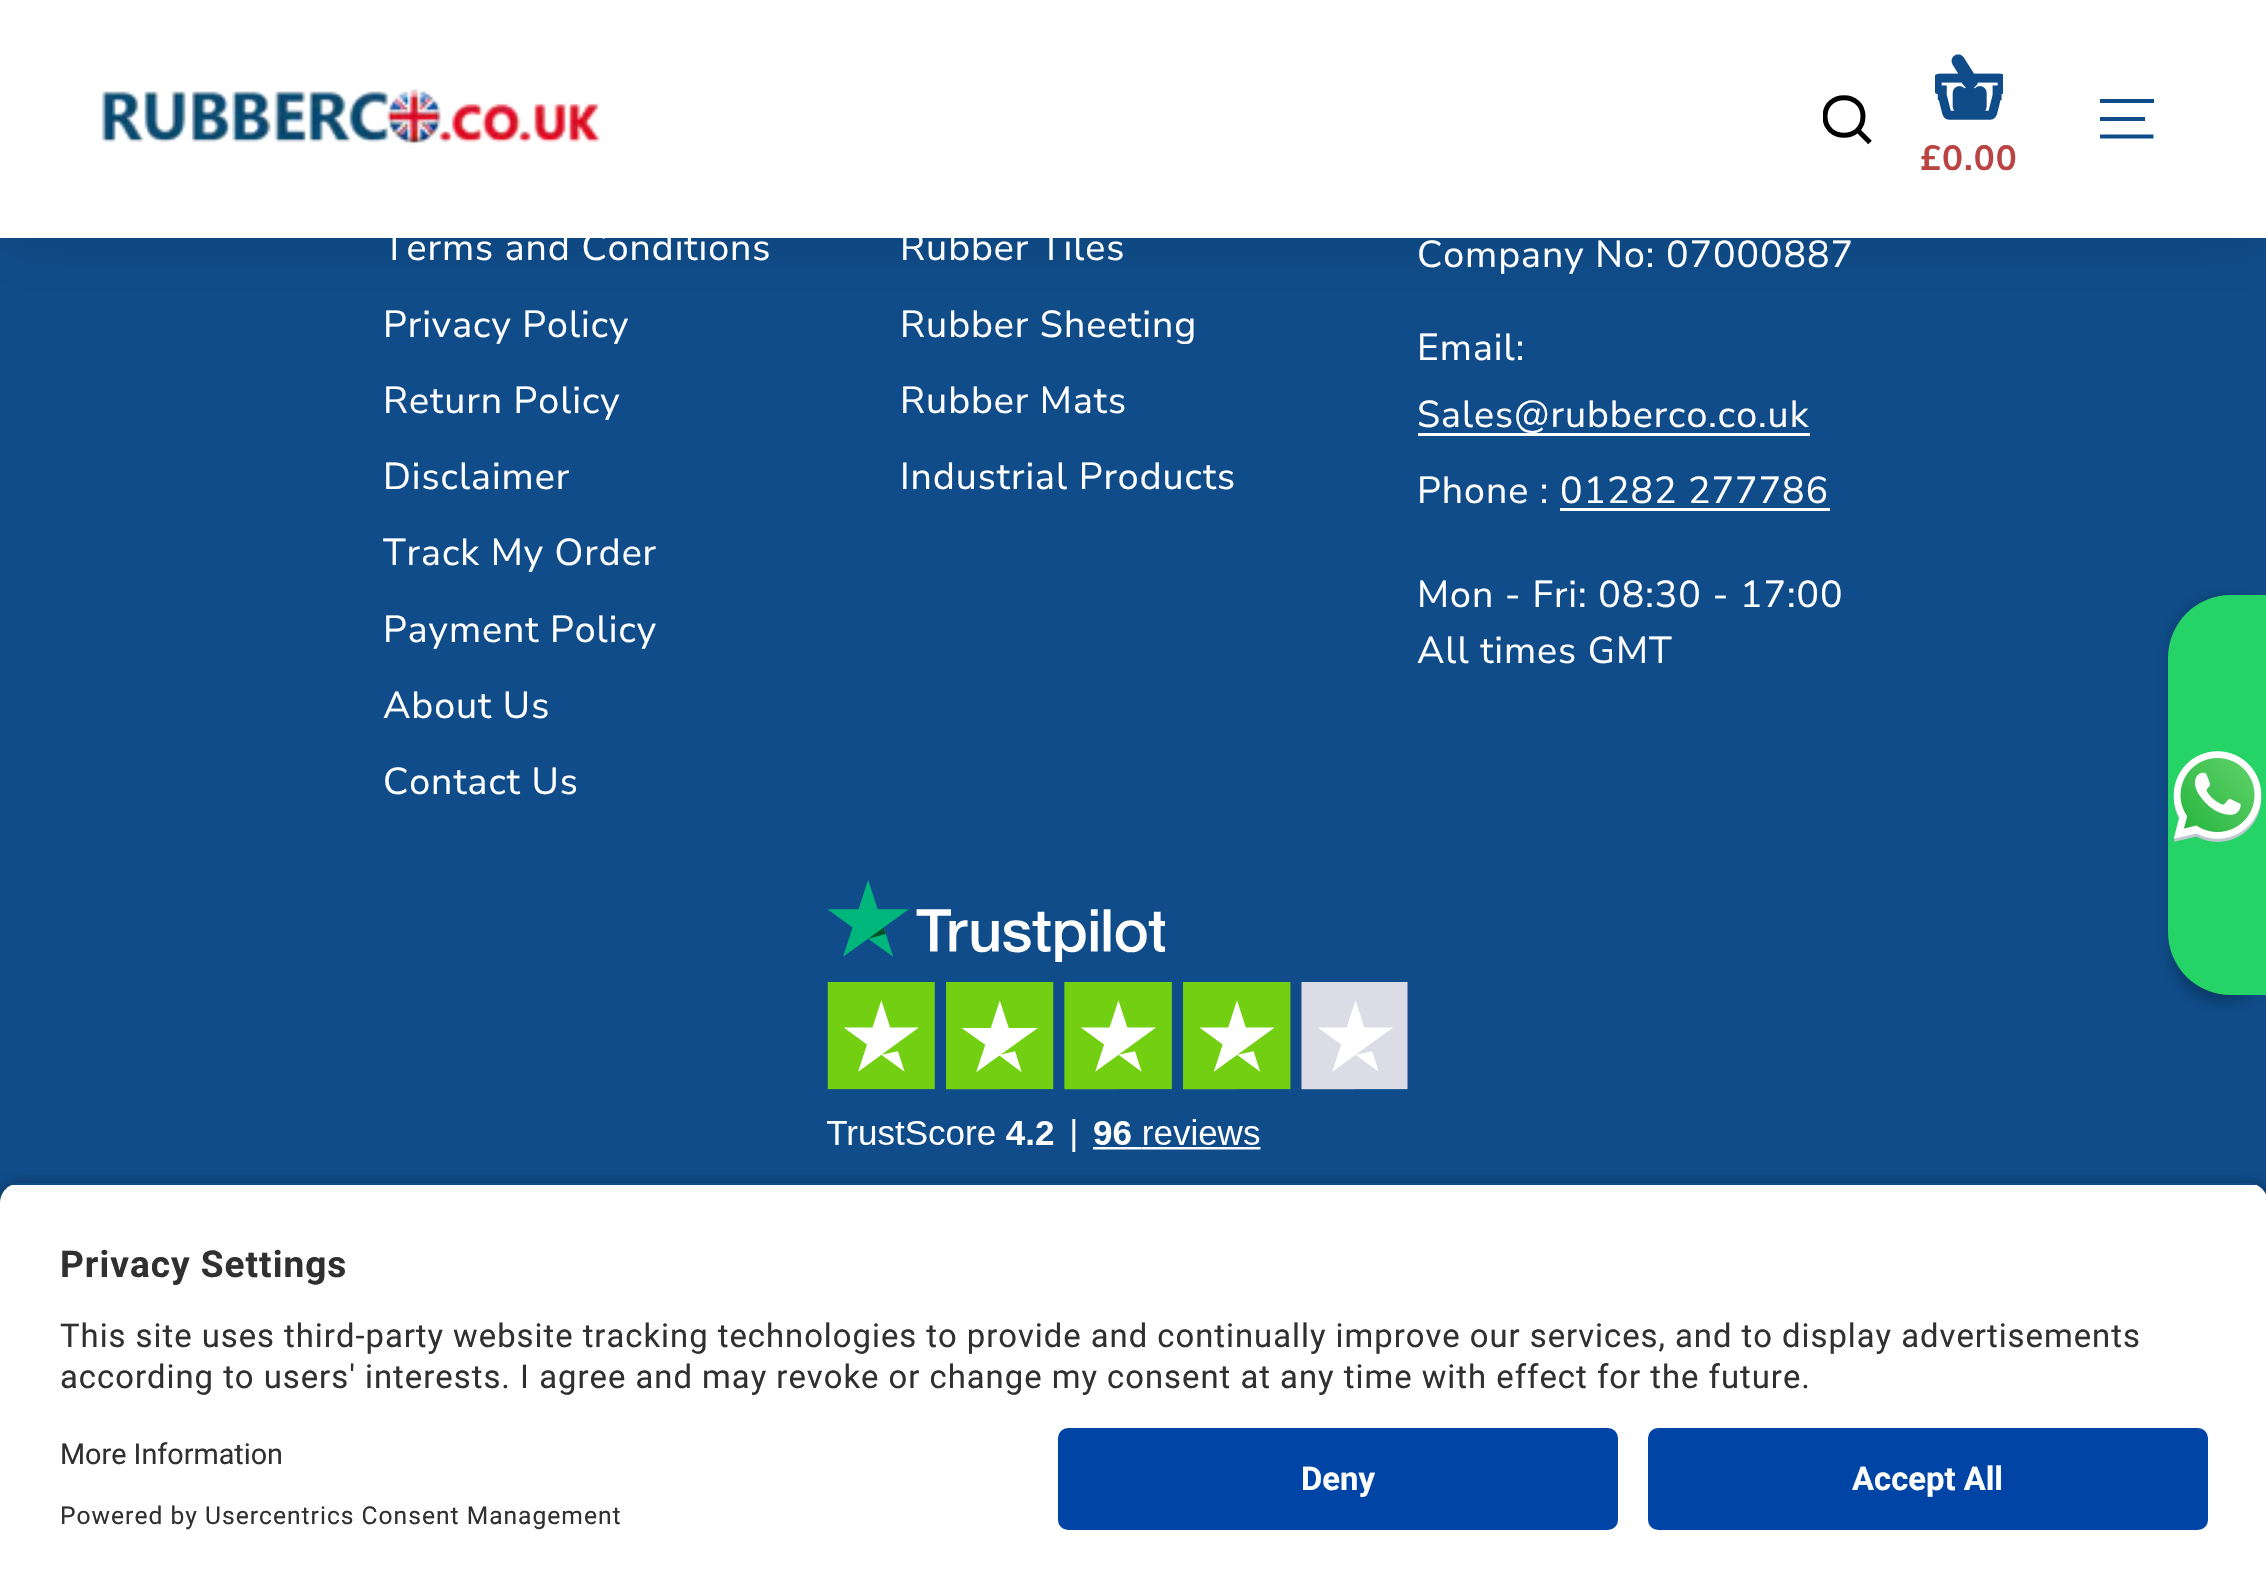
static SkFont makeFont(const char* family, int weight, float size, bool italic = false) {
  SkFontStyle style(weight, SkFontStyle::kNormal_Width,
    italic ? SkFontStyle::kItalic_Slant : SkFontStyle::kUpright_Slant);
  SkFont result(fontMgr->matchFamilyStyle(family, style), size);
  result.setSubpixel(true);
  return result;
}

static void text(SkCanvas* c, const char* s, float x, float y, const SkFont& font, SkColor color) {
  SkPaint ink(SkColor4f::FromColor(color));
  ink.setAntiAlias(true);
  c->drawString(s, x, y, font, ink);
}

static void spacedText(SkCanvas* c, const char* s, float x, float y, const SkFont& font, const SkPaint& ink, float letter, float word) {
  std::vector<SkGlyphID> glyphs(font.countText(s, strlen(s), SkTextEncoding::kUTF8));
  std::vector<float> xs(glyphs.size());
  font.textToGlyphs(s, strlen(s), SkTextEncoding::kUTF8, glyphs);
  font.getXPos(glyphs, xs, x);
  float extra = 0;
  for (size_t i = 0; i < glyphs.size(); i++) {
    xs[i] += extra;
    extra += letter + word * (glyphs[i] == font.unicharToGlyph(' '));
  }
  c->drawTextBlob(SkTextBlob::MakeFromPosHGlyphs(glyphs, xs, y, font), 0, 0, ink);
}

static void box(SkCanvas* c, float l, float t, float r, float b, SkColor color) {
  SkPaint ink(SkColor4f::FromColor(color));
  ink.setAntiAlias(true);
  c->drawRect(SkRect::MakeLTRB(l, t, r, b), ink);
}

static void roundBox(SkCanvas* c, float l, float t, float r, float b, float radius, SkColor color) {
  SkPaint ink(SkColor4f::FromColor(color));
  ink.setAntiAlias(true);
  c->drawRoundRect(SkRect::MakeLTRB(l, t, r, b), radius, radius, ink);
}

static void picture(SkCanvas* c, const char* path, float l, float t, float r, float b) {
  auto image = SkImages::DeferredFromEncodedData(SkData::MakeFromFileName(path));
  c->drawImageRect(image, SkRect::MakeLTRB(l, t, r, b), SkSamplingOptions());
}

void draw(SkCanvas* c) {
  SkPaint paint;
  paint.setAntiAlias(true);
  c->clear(0xff0f4c89);
  paint.setColor(0x1a000000);
  paint.setMaskFilter(SkMaskFilter::MakeBlur(kNormal_SkBlurStyle, 31));
  c->drawRect(SkRect::MakeLTRB(0, 0, 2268, 238), paint);
  paint.setMaskFilter(nullptr);
  box(c, 0, 0, 2266, 238, 0xffffffff);
  picture(c, "img_01.png", 101, 89, 600, 145);
  c->save();
  c->clipRect(SkRect::MakeLTRB(1823, 95, 1873, 145));
  paint.setStyle(SkPaint::kStroke_Style);
  paint.setStrokeWidth(5);
  paint.setColor(0xff000000);
  c->drawPath(SkPathBuilder().moveTo(1863, 116.5f).cubicTo(1863, 141.5f, 1825, 141.5f, 1825, 116.5f).cubicTo(1825, 91.5f, 1863, 91.5f, 1863, 116.5f).close().moveTo(1870, 142.5f).lineTo(1857.5f, 130).detach(), paint);
  c->restore();
  box(c, 2100, 99, 2154, 103, 0xff0f4c89);
  box(c, 2100, 117, 2145, 121, 0xff0f4c89);
  paint.setStrokeWidth(4.2f);
  paint.setColor(0xff0f4c89);
  c->drawPath(SkPathBuilder().moveTo(2100, 136.5f).lineTo(2153.5f, 136.5f).detach(), paint);
  picture(c, "img_02.png", 1935, 54, 2003, 120);
  SkFont face1 = makeFont("Nunito Sans", 700, 35);
  paint.setStyle(SkPaint::kFill_Style);
  paint.setColor(0xffba4444);
  spacedText(c, "£0.00", 1920, 170, face1, paint, 1, 0);
  SkFont face2 = makeFont("Nunito Sans", 400, 37.5f);
  paint.setColor(0xffffffff);
  spacedText(c, "Terms and Conditions", 383, 260, face2, paint, 1, 0);
  spacedText(c, "Privacy Policy", 383, 337, face2, paint, 1, 0);
  spacedText(c, "Return Policy", 383, 413, face2, paint, 1, 0);
  spacedText(c, "Disclaimer", 383, 489, face2, paint, 1, 0);
  spacedText(c, "Track My Order", 383, 565, face2, paint, 1, 0);
  spacedText(c, "Payment Policy", 383, 642, face2, paint, 1, 0);
  spacedText(c, "About Us", 383, 718, face2, paint, 1, 0);
  spacedText(c, "Contact Us", 383, 794, face2, paint, 1, 0);
  spacedText(c, "Rubber Tiles", 900, 260, face2, paint, 1, 0);
  spacedText(c, "Rubber Sheeting", 900, 337, face2, paint, 1, 0);
  spacedText(c, "Rubber Mats", 900, 413, face2, paint, 1, 0);
  spacedText(c, "Industrial Products", 900, 489, face2, paint, 1, 0);
  spacedText(c, "Company No: 07000887", 1417, 267, face2, paint, 1, 0);
  spacedText(c, "Email:", 1417, 360, face2, paint, 1, 0);
  box(c, 1418, 433, 1810, 436, 0xffffffff);
  spacedText(c, "Sales@rubberco.co.uk", 1417, 427, face2, paint, 1, 0);
  spacedText(c, "Phone : 01282 277786", 1417, 503, face2, paint, 1, 0);
  box(c, 1560, 508, 1830, 511, 0xffffffff);
  spacedText(c, "Mon - Fri: 08:30 - 17:00", 1417, 607, face2, paint, 1, 0);
  spacedText(c, "All times GMT", 1417, 663, face2, paint, 1, 0);
  picture(c, "img_03.png", 827, 880, 1408, 1152);
  paint.setColor(0x4d000000);
  paint.setMaskFilter(SkMaskFilter::MakeBlur(kNormal_SkBlurStyle, 7.5f));
  c->drawRoundRect(SkRect::MakeLTRB(2173, 600, 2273, 1000), 63, 63, paint);
  paint.setMaskFilter(nullptr);
  paint.setColor(0xff25d366);
  c->drawPath(SkPathBuilder().moveTo(2231, 595).lineTo(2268, 595).lineTo(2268, 995).lineTo(2231, 995).cubicTo(2196, 995, 2168, 967, 2168, 932).lineTo(2168, 658).cubicTo(2168, 623, 2196, 595, 2231, 595).close().detach(), paint);
  picture(c, "img_04.png", 2173, 751, 2262, 842);
  c->save();
  c->clipPath(SkPathBuilder(SkPathFillType::kEvenOdd).moveTo(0, 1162).lineTo(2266, 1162).lineTo(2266, 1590).lineTo(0, 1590).close().moveTo(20, 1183).lineTo(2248, 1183).cubicTo(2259, 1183, 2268, 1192, 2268, 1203).lineTo(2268, 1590).lineTo(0, 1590).lineTo(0, 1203).cubicTo(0, 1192, 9, 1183, 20, 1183).close().detach(), true);
  paint.setColor(0xcc000000);
  paint.setMaskFilter(SkMaskFilter::MakeBlur(kNormal_SkBlurStyle, 9));
  c->drawRoundRect(SkRect::MakeLTRB(0, 1190, 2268, 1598), 20, 20, paint);
  paint.setMaskFilter(nullptr);
  c->restore();
  c->save();
  c->clipPath(SkPathBuilder().moveTo(20, 1183).lineTo(2248, 1183).cubicTo(2259, 1183, 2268, 1192, 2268, 1203).lineTo(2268, 1408).lineTo(0, 1408).lineTo(0, 1203).cubicTo(0, 1192, 9, 1183, 20, 1183).close().detach(), true);
  box(c, 0, 1185, 2266, 1408, 0xffffffff);
  c->restore();
  SkFont face3 = makeFont("Roboto", 700, 37);
  paint.setColor(0xff303030);
  spacedText(c, "Privacy Settings", 60, 1277, face3, paint, 1, 0);
  SkFont face4 = makeFont("Roboto", 400, 32.8f);
  spacedText(c, "This site uses third-party website tracking technologies to provide and continually improve our services, and to display advertisements", 60, 1347, face4, paint, 1, -0.1f);
  spacedText(c, "according to users' interests. I agree and may revoke or change my consent at any time with effect for the future.", 60, 1388, face4, paint, 1, 0);
  box(c, 0, 1408, 2266, 1590, 0xffffffff);
  SkFont face5 = makeFont("Roboto", 400, 28.75f);
  text(c, "More Information", 60, 1464, face5, 0xff303030);
  SkFont face6 = makeFont("Roboto", 400, 24.6f);
  spacedText(c, "Powered by Usercentrics Consent Management", 60, 1524, face6, paint, 1, 0);
  roundBox(c, 1058, 1428, 1618, 1530, 10, 0xff0045a5);
  SkFont face7 = makeFont("Roboto", 700, 32.8f);
  text(c, "Deny", 1301, 1490, face7, 0xffffffff);
  roundBox(c, 1648, 1428, 2208, 1530, 10, 0xff0045a5);
  text(c, "Accept All", 1852, 1490, face7, 0xffffffff);
}
